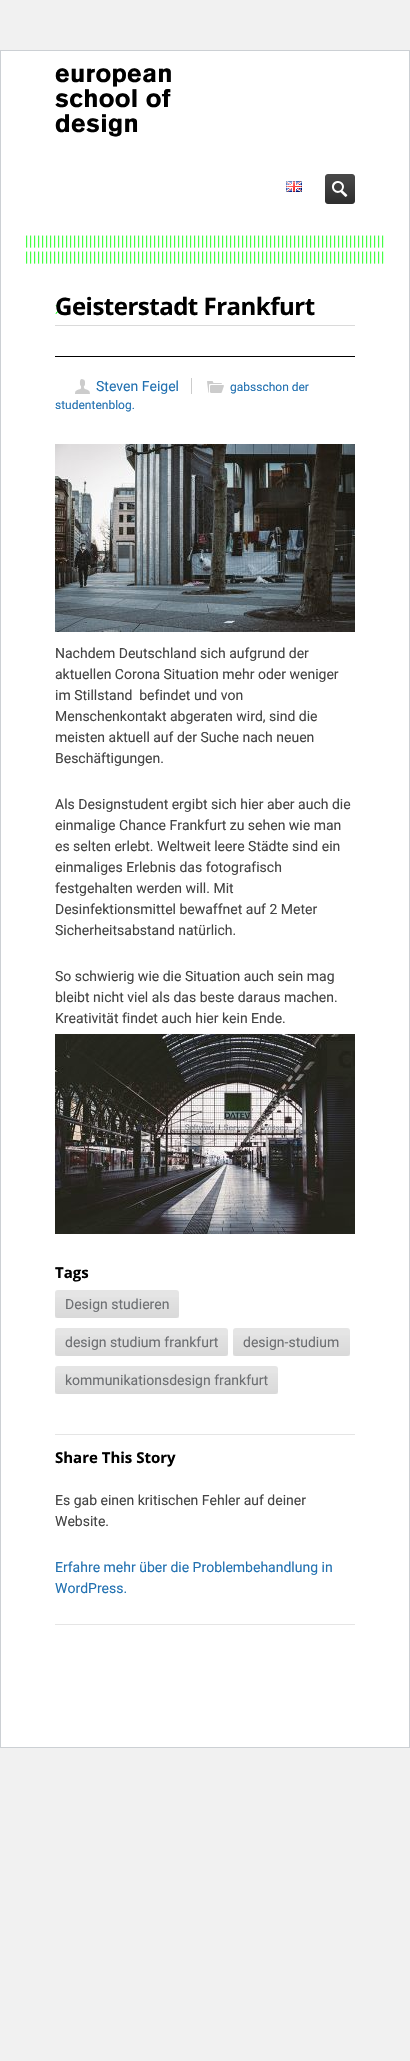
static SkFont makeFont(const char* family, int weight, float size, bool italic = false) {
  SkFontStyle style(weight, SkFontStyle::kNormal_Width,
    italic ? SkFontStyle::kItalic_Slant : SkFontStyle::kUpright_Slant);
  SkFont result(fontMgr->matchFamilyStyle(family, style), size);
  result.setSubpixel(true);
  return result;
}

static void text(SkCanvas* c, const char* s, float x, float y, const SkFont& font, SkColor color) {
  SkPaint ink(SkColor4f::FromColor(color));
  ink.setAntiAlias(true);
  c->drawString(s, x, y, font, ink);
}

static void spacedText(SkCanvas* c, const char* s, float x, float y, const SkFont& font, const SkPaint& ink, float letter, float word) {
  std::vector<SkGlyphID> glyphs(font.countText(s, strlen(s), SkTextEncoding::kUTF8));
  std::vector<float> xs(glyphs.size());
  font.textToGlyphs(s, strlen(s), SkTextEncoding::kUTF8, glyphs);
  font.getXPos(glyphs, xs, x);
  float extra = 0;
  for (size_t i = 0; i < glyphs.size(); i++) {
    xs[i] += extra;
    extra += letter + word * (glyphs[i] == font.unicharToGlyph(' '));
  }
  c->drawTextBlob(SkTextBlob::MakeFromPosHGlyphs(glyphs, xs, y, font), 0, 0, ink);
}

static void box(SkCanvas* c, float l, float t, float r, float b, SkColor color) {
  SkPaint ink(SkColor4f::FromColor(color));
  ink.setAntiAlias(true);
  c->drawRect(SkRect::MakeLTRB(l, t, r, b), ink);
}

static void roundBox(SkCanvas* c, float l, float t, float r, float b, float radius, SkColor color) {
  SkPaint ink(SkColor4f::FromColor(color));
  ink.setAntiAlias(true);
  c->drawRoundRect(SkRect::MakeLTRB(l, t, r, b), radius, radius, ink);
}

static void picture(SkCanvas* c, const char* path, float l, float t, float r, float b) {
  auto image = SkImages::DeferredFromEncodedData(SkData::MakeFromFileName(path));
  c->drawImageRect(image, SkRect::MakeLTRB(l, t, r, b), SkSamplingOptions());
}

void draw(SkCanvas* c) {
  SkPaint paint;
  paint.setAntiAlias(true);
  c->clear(0xfff1f1f1);
  paint.setColor(0xffffffff);
  c->drawRect(SkRect::MakeLTRB(0.5f, 50.5f, 409.5f, 1747.5f), paint);
  paint.setStyle(SkPaint::kStroke_Style);
  paint.setStrokeWidth(1);
  paint.setColor(0xffccd0d4);
  c->drawRect(SkRect::MakeLTRB(0.5f, 50.5f, 409.5f, 1747.5f), paint);
  SkFont face1 = makeFont("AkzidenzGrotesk", 900, 25);
  paint.setStyle(SkPaint::kFill_Style);
  paint.setColor(0xff000000);
  spacedText(c, "european", 55, 82, face1, paint, 0.25f, 0);
  spacedText(c, "school of", 55, 107, face1, paint, 0.25f, 0);
  spacedText(c, "design", 55, 132, face1, paint, 0.25f, 0);
  picture(c, "img_01.png", 286, 181, 302, 192);
  picture(c, "img_02.png", 325, 174, 355, 204);
  picture(c, "img_03.png", 26, 235, 384, 264);
  picture(c, "img_04.png", 55, 305, 61, 314);
  box(c, 55, 325, 355, 326, 0xffdadada);
  SkFont face2 = makeFont("Open Sans", 700, 24);
  spacedText(c, "Geisterstadt Frankfurt", 55, 315, face2, paint, -0.5f, 0);
  box(c, 55, 356, 355, 357, 0xff000000);
  picture(c, "img_05.png", 75, 379, 90, 394);
  SkFont face3 = makeFont("Roboto", 400, 14);
  text(c, "Steven Feigel", 96, 391, face3, 0xff2271b1);
  box(c, 191, 378, 192, 394, 0xffcccccc);
  picture(c, "img_06.png", 207, 381, 224, 393);
  SkFont face4 = makeFont("Roboto", 400, 12);
  text(c, "gabsschon der", 230, 391, face4, 0xff2271b1);
  text(c, "studentenblog.", 55, 409, face4, 0xff2271b1);
  picture(c, "img_07.png", 55, 444, 355, 632);
  text(c, "Nachdem Deutschland sich aufgrund der", 55, 658, face3, 0xff444444);
  text(c, "aktuellen Corona Situation mehr oder weniger", 55, 679, face3, 0xff444444);
  text(c, "im Stillstand  befindet und von", 55, 700, face3, 0xff444444);
  text(c, "Menschenkontakt abgeraten wird, sind die", 55, 721, face3, 0xff444444);
  text(c, "meisten aktuell auf der Suche nach neuen", 55, 742, face3, 0xff444444);
  text(c, "Beschäftigungen.", 55, 763, face3, 0xff444444);
  text(c, "Als Designstudent ergibt sich hier aber auch die", 55, 809, face3, 0xff444444);
  text(c, "einmalige Chance Frankfurt zu sehen wie man", 55, 830, face3, 0xff444444);
  text(c, "es selten erlebt. Weltweit leere Städte sind ein", 55, 851, face3, 0xff444444);
  text(c, "einmaliges Erlebnis das fotografisch", 55, 872, face3, 0xff444444);
  text(c, "festgehalten werden will. Mit", 55, 893, face3, 0xff444444);
  text(c, "Desinfektionsmittel bewaffnet auf 2 Meter", 55, 914, face3, 0xff444444);
  text(c, "Sicherheitsabstand natürlich.", 55, 935, face3, 0xff444444);
  text(c, "So schwierig wie die Situation auch sein mag", 55, 981, face3, 0xff444444);
  text(c, "bleibt nicht viel als das beste daraus machen.", 55, 1002, face3, 0xff444444);
  text(c, "Kreativität findet auch hier kein Ende.", 55, 1023, face3, 0xff444444);
  picture(c, "img_08.png", 55, 1034, 355, 1234);
  SkFont face5 = makeFont("Open Sans", 700, 15);
  text(c, "Tags", 55, 1278, face5, 0xff000000);
  roundBox(c, 55, 1290, 179, 1318, 3, 0xffe5e5e5);
  {
    const SkColor colors[] = {0x0dffffff, 0x0d000000};
    const float stops[] = {0, 1};
    const SkPoint ends[] = {{117, 1290}, {117, 1318}};
    paint.setShader(SkGradientShader::MakeLinear(ends, colors, stops, 2, SkTileMode::kClamp));
    paint.setAlpha(255);
  }
  c->drawRect(SkRect::MakeLTRB(55, 1297, 179, 1318), paint);
  text(c, "Design studieren", 65, 1309, face3, 0xff6d6f72);
  roundBox(c, 55, 1328, 228, 1356, 3, 0xffe5e5e5);
  {
    const SkColor colors[] = {0x0dffffff, 0x0d000000};
    const float stops[] = {0, 1};
    const SkPoint ends[] = {{142, 1328}, {142, 1356}};
    paint.setShader(SkGradientShader::MakeLinear(ends, colors, stops, 2, SkTileMode::kClamp));
    paint.setAlpha(255);
  }
  c->drawRect(SkRect::MakeLTRB(55, 1335, 228, 1356), paint);
  text(c, "design studium frankfurt", 65, 1347, face3, 0xff6d6f72);
  roundBox(c, 233, 1328, 350, 1356, 3, 0xffe5e5e5);
  {
    const SkColor colors[] = {0x0dffffff, 0x0d000000};
    const float stops[] = {0, 1};
    const SkPoint ends[] = {{292, 1328}, {292, 1356}};
    paint.setShader(SkGradientShader::MakeLinear(ends, colors, stops, 2, SkTileMode::kClamp));
    paint.setAlpha(255);
  }
  c->drawRect(SkRect::MakeLTRB(233, 1335, 350, 1356), paint);
  text(c, "design-studium", 243, 1347, face3, 0xff6d6f72);
  roundBox(c, 55, 1366, 278, 1394, 3, 0xffe5e5e5);
  {
    const SkColor colors[] = {0x0dffffff, 0x0d000000};
    const float stops[] = {0, 1};
    const SkPoint ends[] = {{167, 1366}, {167, 1394}};
    paint.setShader(SkGradientShader::MakeLinear(ends, colors, stops, 2, SkTileMode::kClamp));
    paint.setAlpha(255);
  }
  c->drawRect(SkRect::MakeLTRB(55, 1373, 278, 1394), paint);
  text(c, "kommunikationsdesign frankfurt", 65, 1385, face3, 0xff6d6f72);
  box(c, 55, 1434, 355, 1435, 0xffe5e5e5);
  box(c, 55, 1624, 355, 1625, 0xffe5e5e5);
  text(c, "Share This Story", 55, 1463, face5, 0xff000000);
  text(c, "Es gab einen kritischen Fehler auf deiner", 55, 1505, face3, 0xff444444);
  text(c, "Website.", 55, 1526, face3, 0xff444444);
  text(c, "Erfahre mehr über die Problembehandlung in", 55, 1572, face3, 0xff2271b1);
  text(c, "WordPress.", 55, 1593, face3, 0xff2271b1);
}
